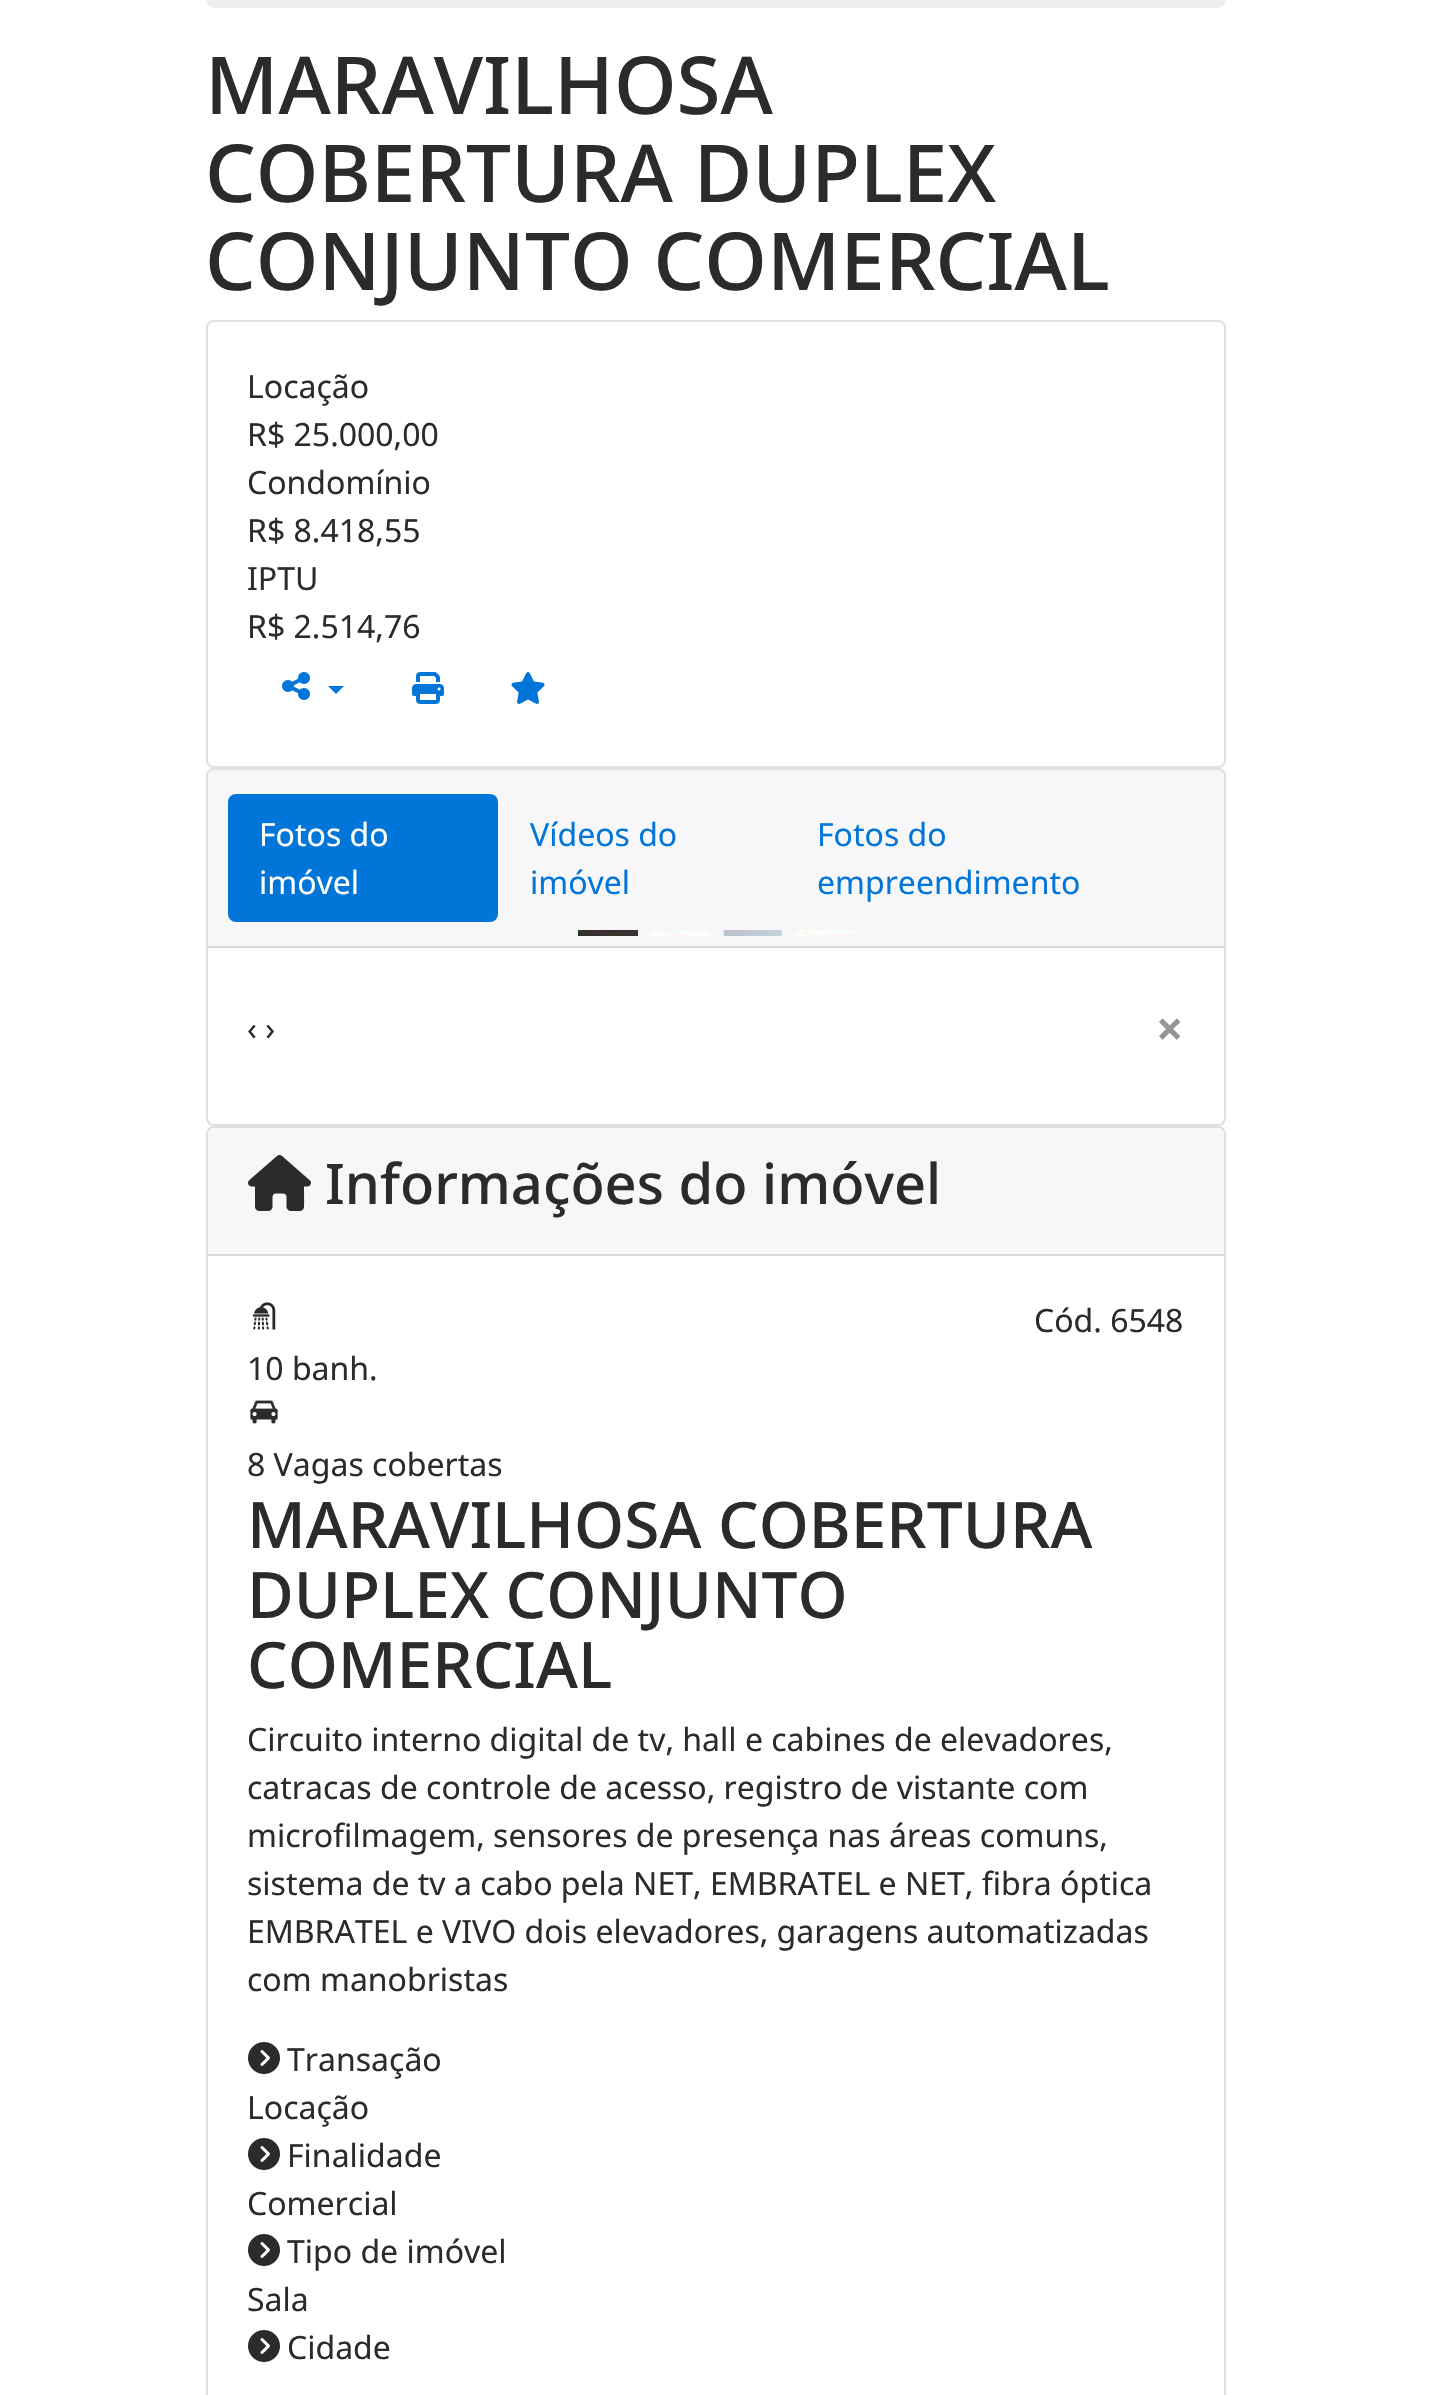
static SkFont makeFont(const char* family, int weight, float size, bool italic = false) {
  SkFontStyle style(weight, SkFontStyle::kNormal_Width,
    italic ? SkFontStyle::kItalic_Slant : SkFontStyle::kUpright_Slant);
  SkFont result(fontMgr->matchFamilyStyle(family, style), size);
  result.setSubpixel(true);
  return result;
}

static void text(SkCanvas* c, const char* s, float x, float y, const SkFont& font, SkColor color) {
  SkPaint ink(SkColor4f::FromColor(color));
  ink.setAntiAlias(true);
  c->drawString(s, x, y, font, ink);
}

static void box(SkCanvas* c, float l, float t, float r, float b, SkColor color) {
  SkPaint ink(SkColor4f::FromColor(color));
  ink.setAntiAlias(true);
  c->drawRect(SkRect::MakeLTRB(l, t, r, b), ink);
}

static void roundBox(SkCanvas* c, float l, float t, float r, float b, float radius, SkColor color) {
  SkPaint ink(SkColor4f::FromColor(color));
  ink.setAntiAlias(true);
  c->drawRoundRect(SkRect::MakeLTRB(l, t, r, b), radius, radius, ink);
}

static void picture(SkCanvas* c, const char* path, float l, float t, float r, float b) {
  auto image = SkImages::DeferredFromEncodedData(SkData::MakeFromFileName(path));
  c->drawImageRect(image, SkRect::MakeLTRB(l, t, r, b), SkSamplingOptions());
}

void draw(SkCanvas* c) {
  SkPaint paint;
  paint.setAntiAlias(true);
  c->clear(0xffffffff);
  roundBox(c, 206, -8, 1226, 8, 8, 0xffeceeef);
  SkFont face1 = makeFont("Noto Sans", 500, 80);
  text(c, "MARAVILHOSA", 205, 114, face1, 0xff292b2c);
  text(c, "COBERTURA DUPLEX", 205, 202, face1, 0xff292b2c);
  text(c, "CONJUNTO COMERCIAL", 205, 290, face1, 0xff292b2c);
  paint.setStyle(SkPaint::kStroke_Style);
  paint.setStrokeWidth(2);
  paint.setColor(0xffdfdfdf);
  c->drawRoundRect(SkRect::MakeLTRB(207, 321, 1225, 767), 7, 7, paint);
  SkFont face2 = makeFont("Noto Sans", 400, 32);
  text(c, "Locação", 247, 398, face2, 0xff292b2c);
  text(c, "R$ 25.000,00", 247, 446, face2, 0xff292b2c);
  text(c, "Condomínio", 247, 494, face2, 0xff292b2c);
  text(c, "R$ 8.418,55", 247, 542, face2, 0xff292b2c);
  text(c, "IPTU", 247, 590, face2, 0xff292b2c);
  text(c, "R$ 2.514,76", 247, 638, face2, 0xff292b2c);
  picture(c, "img_01.png", 282, 672, 310, 700);
  paint.setStyle(SkPaint::kFill_Style);
  paint.setColor(0xff0275d8);
  c->drawPath(SkPathBuilder().moveTo(328, 686).lineTo(344, 686).lineTo(336, 694).close().detach(), paint);
  picture(c, "img_02.png", 412, 672, 444, 704);
  picture(c, "img_03.png", 511, 672, 545, 704);
  paint.setStyle(SkPaint::kStroke_Style);
  paint.setColor(0xffdfdfdf);
  c->drawRoundRect(SkRect::MakeLTRB(207, 769, 1225, 1125), 7, 7, paint);
  paint.setStyle(SkPaint::kFill_Style);
  paint.setColor(0xfff7f7f9);
  c->drawPath(SkPathBuilder().moveTo(214, 770).lineTo(1218, 770).cubicTo(1221.5f, 770, 1224, 772.5f, 1224, 776).lineTo(1224, 948).lineTo(208, 948).lineTo(208, 776).cubicTo(208, 772.5f, 210.5f, 770, 214, 770).close().detach(), paint);
  box(c, 208, 946, 1224, 948, 0xffd8d8da);
  roundBox(c, 228, 794, 498, 922, 8, 0xff0275d8);
  text(c, "Fotos do", 259, 846, face2, 0xffffffff);
  text(c, "imóvel", 259, 894, face2, 0xffffffff);
  text(c, "Vídeos do", 530, 846, face2, 0xff0275d8);
  text(c, "imóvel", 530, 894, face2, 0xff0275d8);
  text(c, "Fotos do", 817, 846, face2, 0xff0275d8);
  text(c, "empreendimento", 817, 894, face2, 0xff0275d8);
  picture(c, "img_04.png", 578, 930, 638, 936);
  box(c, 650, 930, 710, 936, 0xfffbfbfc);
  picture(c, "img_05.png", 667, 930, 687, 936);
  picture(c, "img_06.png", 722, 930, 782, 936);
  picture(c, "img_07.png", 794, 930, 854, 936);
  text(c, "‹ ›", 247, 1040, face2, 0xff292b2c);
  SkFont face3 = makeFont("Noto Sans", 700, 48);
  text(c, "×", 1156, 1046, face3, 0xff949596);
  paint.setStyle(SkPaint::kStroke_Style);
  paint.setColor(0xffdfdfdf);
  c->drawRoundRect(SkRect::MakeLTRB(207, 1127, 1225, 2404), 7, 7, paint);
  paint.setStyle(SkPaint::kFill_Style);
  paint.setColor(0xfff7f7f9);
  c->drawPath(SkPathBuilder().moveTo(214, 1128).lineTo(1218, 1128).cubicTo(1221.5f, 1128, 1224, 1130.5f, 1224, 1134).lineTo(1224, 1256).lineTo(208, 1256).lineTo(208, 1134).cubicTo(208, 1130.5f, 210.5f, 1128, 214, 1128).close().detach(), paint);
  box(c, 208, 1254, 1224, 1256, 0xffd8d8da);
  picture(c, "img_08.png", 248, 1155, 311, 1211);
  SkFont face4 = makeFont("Noto Sans", 500, 56);
  text(c, "Informações do imóvel", 325, 1204, face4, 0xff292b2c);
  text(c, "Cód. 6548", 1034, 1332, face2, 0xff292b2c);
  picture(c, "img_09.png", 252, 1302, 276, 1330);
  text(c, "10 banh.", 247, 1380, face2, 0xff292b2c);
  picture(c, "img_10.png", 250, 1400, 278, 1424);
  text(c, "8 Vagas cobertas", 247, 1476, face2, 0xff292b2c);
  SkFont face5 = makeFont("Noto Sans", 500, 64);
  text(c, "MARAVILHOSA COBERTURA", 247, 1548, face5, 0xff292b2c);
  text(c, "DUPLEX CONJUNTO", 247, 1618, face5, 0xff292b2c);
  text(c, "COMERCIAL", 247, 1688, face5, 0xff292b2c);
  text(c, "Circuito interno digital de tv, hall e cabines de elevadores,", 247, 1751, face2, 0xff292b2c);
  text(c, "catracas de controle de acesso, registro de vistante com", 247, 1799, face2, 0xff292b2c);
  text(c, "microfilmagem, sensores de presença nas áreas comuns,", 247, 1847, face2, 0xff292b2c);
  text(c, "sistema de tv a cabo pela NET, EMBRATEL e NET, fibra óptica", 247, 1895, face2, 0xff292b2c);
  text(c, "EMBRATEL e VIVO dois elevadores, garagens automatizadas", 247, 1943, face2, 0xff292b2c);
  text(c, "com manobristas", 247, 1991, face2, 0xff292b2c);
  picture(c, "img_11.png", 248, 2042, 280, 2074);
  text(c, "Transação", 287, 2071, face2, 0xff292b2c);
  text(c, "Locação", 247, 2119, face2, 0xff292b2c);
  picture(c, "img_11.png", 248, 2138, 280, 2170);
  text(c, "Finalidade", 287, 2167, face2, 0xff292b2c);
  text(c, "Comercial", 247, 2215, face2, 0xff292b2c);
  picture(c, "img_11.png", 248, 2234, 280, 2266);
  text(c, "Tipo de imóvel", 287, 2263, face2, 0xff292b2c);
  text(c, "Sala", 247, 2311, face2, 0xff292b2c);
  picture(c, "img_11.png", 248, 2330, 280, 2362);
  text(c, "Cidade", 287, 2359, face2, 0xff292b2c);
}
